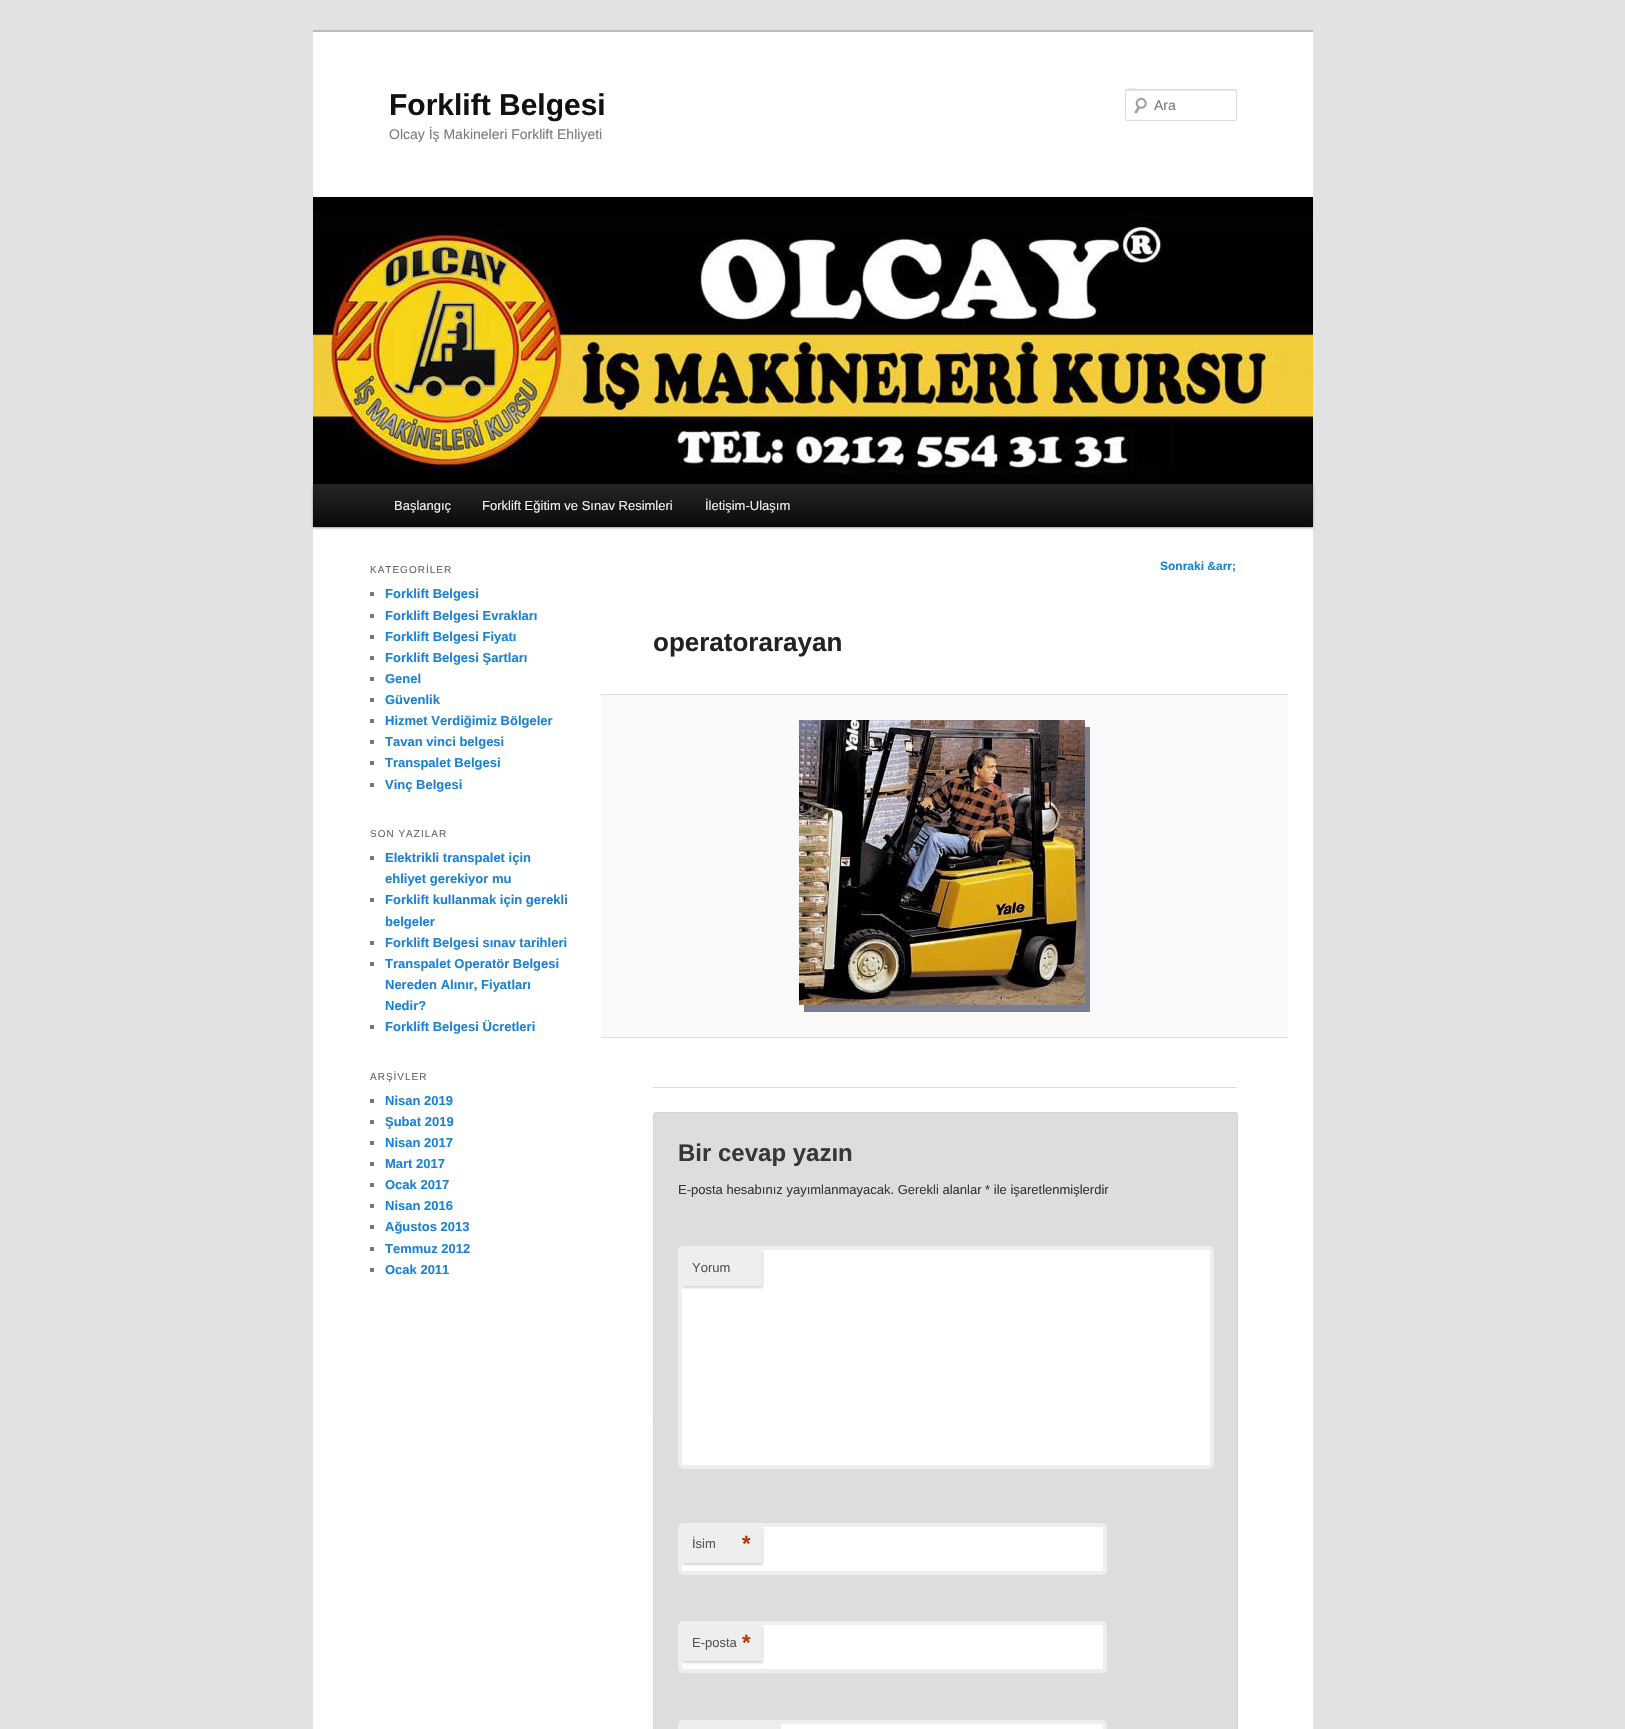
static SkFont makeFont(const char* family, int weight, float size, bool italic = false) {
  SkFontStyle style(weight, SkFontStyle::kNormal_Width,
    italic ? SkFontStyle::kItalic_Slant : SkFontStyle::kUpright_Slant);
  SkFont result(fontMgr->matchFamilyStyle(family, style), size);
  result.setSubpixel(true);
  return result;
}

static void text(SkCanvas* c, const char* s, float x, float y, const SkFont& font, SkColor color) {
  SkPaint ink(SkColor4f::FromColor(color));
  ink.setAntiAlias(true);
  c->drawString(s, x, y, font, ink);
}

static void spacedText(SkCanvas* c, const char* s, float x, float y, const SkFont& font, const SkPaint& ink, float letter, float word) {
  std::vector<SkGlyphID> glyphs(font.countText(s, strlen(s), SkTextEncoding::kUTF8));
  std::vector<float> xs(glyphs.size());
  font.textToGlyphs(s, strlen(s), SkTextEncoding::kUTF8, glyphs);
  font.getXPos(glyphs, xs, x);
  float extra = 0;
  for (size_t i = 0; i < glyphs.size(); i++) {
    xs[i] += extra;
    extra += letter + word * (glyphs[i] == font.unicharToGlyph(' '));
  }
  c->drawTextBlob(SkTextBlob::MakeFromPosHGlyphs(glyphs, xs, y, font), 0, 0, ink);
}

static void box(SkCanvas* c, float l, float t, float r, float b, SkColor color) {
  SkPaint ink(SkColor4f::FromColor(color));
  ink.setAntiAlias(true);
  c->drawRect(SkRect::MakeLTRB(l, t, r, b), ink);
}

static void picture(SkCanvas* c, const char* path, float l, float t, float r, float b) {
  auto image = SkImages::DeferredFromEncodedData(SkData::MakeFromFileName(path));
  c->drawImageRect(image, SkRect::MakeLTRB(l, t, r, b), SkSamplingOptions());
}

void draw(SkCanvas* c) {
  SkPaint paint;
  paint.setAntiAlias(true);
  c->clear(0xffe2e2e2);
  box(c, 313, 32, 1313, 1729, 0xffffffff);
  box(c, 313, 30, 1313, 32, 0xffbbbbbb);
  SkFont face1 = makeFont("Liberation Sans", 700, 30);
  text(c, "Forklift Belgesi", 389, 115, face1, 0xff111111);
  SkFont face2 = makeFont("Liberation Sans", 400, 14);
  text(c, "Olcay İş Makineleri Forklift Ehliyeti", 389, 139, face2, 0xff7a7a7a);
  picture(c, "img_01.png", 1134, 97, 1147, 114);
  paint.setColor(0xffe6e6e6);
  c->drawPath(SkPathBuilder().moveTo(1127, 91).lineTo(1236, 91).lineTo(1236, 92).lineTo(1235, 90).lineTo(1145, 90).cubicTo(1141, 90, 1126, 85, 1126, 92).cubicTo(1126, 91, 1126, 91, 1127, 91).close().detach(), paint);
  paint.setStyle(SkPaint::kStroke_Style);
  paint.setStrokeWidth(1);
  paint.setColor(0xffdddddd);
  c->drawRoundRect(SkRect::MakeLTRB(1125.5f, 89.5f, 1236.5f, 120.5f), 1.5f, 1.5f, paint);
  text(c, "Ara", 1154, 110, face2, 0xff7a7a7a);
  paint.setStyle(SkPaint::kFill_Style);
  paint.setColor(0x66000000);
  paint.setMaskFilter(SkMaskFilter::MakeBlur(kNormal_SkBlurStyle, 1));
  c->drawRect(SkRect::MakeLTRB(313, 485, 1313, 528), paint);
  paint.setMaskFilter(nullptr);
  picture(c, "img_02.png", 313, 197, 1313, 484);
  {
    const SkColor colors[] = {0xff252525, 0xff0a0a0a};
    const float stops[] = {0, 1};
    const SkPoint ends[] = {{813, 484}, {813, 527}};
    paint.setShader(SkGradientShader::MakeLinear(ends, colors, stops, 2, SkTileMode::kClamp));
    paint.setAlpha(255);
  }
  c->drawRect(SkRect::MakeLTRB(313, 484, 1313, 527), paint);
  SkFont face3 = makeFont("Liberation Sans", 400, 13);
  text(c, "Başlangıç", 394, 510, face3, 0xffeeeeee);
  text(c, "Forklift Eğitim ve Sınav Resimleri", 482, 510, face3, 0xffeeeeee);
  text(c, "İletişim-Ulaşım", 705, 510, face3, 0xffeeeeee);
  SkFont face4 = makeFont("Liberation Sans", 400, 10);
  paint.setShader(nullptr);
  paint.setColor(0xff666666);
  spacedText(c, "KATEGORİLER", 370, 573, face4, paint, 1, 0);
  box(c, 370, 592, 374, 596, 0xff777777);
  SkFont face5 = makeFont("Liberation Sans", 700, 13);
  text(c, "Forklift Belgesi", 385, 598, face5, 0xff1982d1);
  box(c, 370, 614, 374, 618, 0xff777777);
  text(c, "Forklift Belgesi Evrakları", 385, 620, face5, 0xff1982d1);
  box(c, 370, 635, 374, 639, 0xff777777);
  text(c, "Forklift Belgesi Fiyatı", 385, 641, face5, 0xff1982d1);
  box(c, 370, 656, 374, 660, 0xff777777);
  text(c, "Forklift Belgesi Şartları", 385, 662, face5, 0xff1982d1);
  box(c, 370, 677, 374, 681, 0xff777777);
  text(c, "Genel", 385, 683, face5, 0xff1982d1);
  box(c, 370, 698, 374, 702, 0xff777777);
  text(c, "Güvenlik", 385, 704, face5, 0xff1982d1);
  box(c, 370, 719, 374, 723, 0xff777777);
  text(c, "Hizmet Verdiğimiz Bölgeler", 385, 725, face5, 0xff1982d1);
  box(c, 370, 740, 374, 744, 0xff777777);
  text(c, "Tavan vinci belgesi", 385, 746, face5, 0xff1982d1);
  box(c, 370, 761, 374, 765, 0xff777777);
  text(c, "Transpalet Belgesi", 385, 767, face5, 0xff1982d1);
  box(c, 370, 783, 374, 787, 0xff777777);
  text(c, "Vinç Belgesi", 385, 789, face5, 0xff1982d1);
  spacedText(c, "SON YAZILAR", 370, 837, face4, paint, 1, 0);
  box(c, 370, 856, 374, 860, 0xff777777);
  text(c, "Elektrikli transpalet için", 385, 862, face5, 0xff1982d1);
  text(c, "ehliyet gerekiyor mu", 385, 883, face5, 0xff1982d1);
  box(c, 370, 898, 374, 902, 0xff777777);
  text(c, "Forklift kullanmak için gerekli", 385, 904, face5, 0xff1982d1);
  text(c, "belgeler", 385, 926, face5, 0xff1982d1);
  box(c, 370, 941, 374, 945, 0xff777777);
  text(c, "Forklift Belgesi sınav tarihleri", 385, 947, face5, 0xff1982d1);
  box(c, 370, 962, 374, 966, 0xff777777);
  text(c, "Transpalet Operatör Belgesi", 385, 968, face5, 0xff1982d1);
  text(c, "Nereden Alınır, Fiyatları", 385, 989, face5, 0xff1982d1);
  text(c, "Nedir?", 385, 1010, face5, 0xff1982d1);
  box(c, 370, 1025, 374, 1029, 0xff777777);
  text(c, "Forklift Belgesi Ücretleri", 385, 1031, face5, 0xff1982d1);
  spacedText(c, "ARŞİVLER", 370, 1080, face4, paint, 1, 0);
  box(c, 370, 1099, 374, 1103, 0xff777777);
  text(c, "Nisan 2019", 385, 1105, face5, 0xff1982d1);
  box(c, 370, 1120, 374, 1124, 0xff777777);
  text(c, "Şubat 2019", 385, 1126, face5, 0xff1982d1);
  box(c, 370, 1141, 374, 1145, 0xff777777);
  text(c, "Nisan 2017", 385, 1147, face5, 0xff1982d1);
  box(c, 370, 1162, 374, 1166, 0xff777777);
  text(c, "Mart 2017", 385, 1168, face5, 0xff1982d1);
  box(c, 370, 1183, 374, 1187, 0xff777777);
  text(c, "Ocak 2017", 385, 1189, face5, 0xff1982d1);
  box(c, 370, 1204, 374, 1208, 0xff777777);
  text(c, "Nisan 2016", 385, 1210, face5, 0xff1982d1);
  box(c, 370, 1225, 374, 1229, 0xff777777);
  text(c, "Ağustos 2013", 385, 1231, face5, 0xff1982d1);
  box(c, 370, 1247, 374, 1251, 0xff777777);
  text(c, "Temmuz 2012", 385, 1253, face5, 0xff1982d1);
  box(c, 370, 1268, 374, 1272, 0xff777777);
  text(c, "Ocak 2011", 385, 1274, face5, 0xff1982d1);
  SkFont face6 = makeFont("Liberation Sans", 700, 12);
  text(c, "Sonraki &arr;", 1160, 570, face6, 0xff1982d1);
  box(c, 653, 1087, 1237, 1088, 0xffdddddd);
  SkFont face7 = makeFont("Liberation Sans", 700, 26);
  text(c, "operatorarayan", 653, 651, face7, 0xff222222);
  box(c, 601, 695, 1288, 1037, 0xfff9f9f9);
  box(c, 601, 694, 1288, 695, 0xffdddddd);
  box(c, 601, 1037, 1288, 1038, 0xffdddddd);
  picture(c, "img_03.png", 799, 720, 1091, 1013);
  paint.setColor(0xffdddddd);
  c->drawRoundRect(SkRect::MakeLTRB(653.5f, 1112.5f, 1237.5f, 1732.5f), 2.5f, 2.5f, paint);
  paint.setStyle(SkPaint::kStroke_Style);
  paint.setColor(0xffd3d3d3);
  c->drawRoundRect(SkRect::MakeLTRB(653.5f, 1112.5f, 1237.5f, 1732.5f), 2.5f, 2.5f, paint);
  SkFont face8 = makeFont("Liberation Sans", 700, 24);
  text(c, "Bir cevap yazın", 678, 1161, face8, 0xff373737);
  text(c, "E-posta hesabınız yayımlanmayacak. Gerekli alanlar * ile işaretlenmişlerdir", 678, 1194, face3, 0xff373737);
  paint.setStyle(SkPaint::kFill_Style);
  paint.setColor(0xffffffff);
  c->drawRoundRect(SkRect::MakeLTRB(680, 1248, 1212, 1467), 3, 3, paint);
  paint.setStyle(SkPaint::kStroke_Style);
  paint.setStrokeWidth(4);
  paint.setColor(0xffeeeeee);
  c->drawRoundRect(SkRect::MakeLTRB(680, 1248, 1212, 1467), 3, 3, paint);
  paint.setStyle(SkPaint::kFill_Style);
  paint.setColor(0xcccccccc);
  paint.setMaskFilter(SkMaskFilter::MakeBlur(kNormal_SkBlurStyle, 1));
  c->drawRect(SkRect::MakeLTRB(683, 1252, 763, 1288), paint);
  paint.setMaskFilter(nullptr);
  box(c, 682, 1250, 762, 1286, 0xffeeeeee);
  text(c, "Yorum", 692, 1272, face3, 0xff555555);
  paint.setColor(0xffffffff);
  c->drawRoundRect(SkRect::MakeLTRB(680, 1525, 1105, 1573), 3, 3, paint);
  paint.setStyle(SkPaint::kStroke_Style);
  paint.setColor(0xffeeeeee);
  c->drawRoundRect(SkRect::MakeLTRB(680, 1525, 1105, 1573), 3, 3, paint);
  paint.setStyle(SkPaint::kFill_Style);
  paint.setColor(0xcccccccc);
  paint.setMaskFilter(SkMaskFilter::MakeBlur(kNormal_SkBlurStyle, 1));
  c->drawRect(SkRect::MakeLTRB(683, 1528, 763, 1565), paint);
  paint.setMaskFilter(nullptr);
  box(c, 682, 1527, 762, 1563, 0xffeeeeee);
  text(c, "İsim", 692, 1548, face3, 0xff555555);
  SkFont face9 = makeFont("Liberation Sans", 700, 22);
  text(c, "*", 742, 1551, face9, 0xffbd3500);
  paint.setColor(0xffffffff);
  c->drawRoundRect(SkRect::MakeLTRB(680, 1623, 1105, 1671), 3, 3, paint);
  paint.setStyle(SkPaint::kStroke_Style);
  paint.setColor(0xffeeeeee);
  c->drawRoundRect(SkRect::MakeLTRB(680, 1623, 1105, 1671), 3, 3, paint);
  paint.setStyle(SkPaint::kFill_Style);
  paint.setColor(0xcccccccc);
  paint.setMaskFilter(SkMaskFilter::MakeBlur(kNormal_SkBlurStyle, 1));
  c->drawRect(SkRect::MakeLTRB(683, 1627, 763, 1663), paint);
  paint.setMaskFilter(nullptr);
  box(c, 682, 1625, 762, 1661, 0xffeeeeee);
  text(c, "E-posta", 692, 1647, face3, 0xff555555);
  text(c, "*", 742, 1650, face9, 0xffbd3500);
  paint.setColor(0xffffffff);
  c->drawRoundRect(SkRect::MakeLTRB(680, 1722, 1105, 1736), 3, 3, paint);
  paint.setStyle(SkPaint::kStroke_Style);
  paint.setColor(0xffeeeeee);
  c->drawRoundRect(SkRect::MakeLTRB(680, 1722, 1105, 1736), 3, 3, paint);
  paint.setStyle(SkPaint::kFill_Style);
  paint.setColor(0xcccccccc);
  paint.setMaskFilter(SkMaskFilter::MakeBlur(kNormal_SkBlurStyle, 1));
  c->drawRect(SkRect::MakeLTRB(683, 1725, 780, 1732), paint);
  paint.setMaskFilter(nullptr);
  box(c, 682, 1724, 779, 1729, 0xffeeeeee);
}
